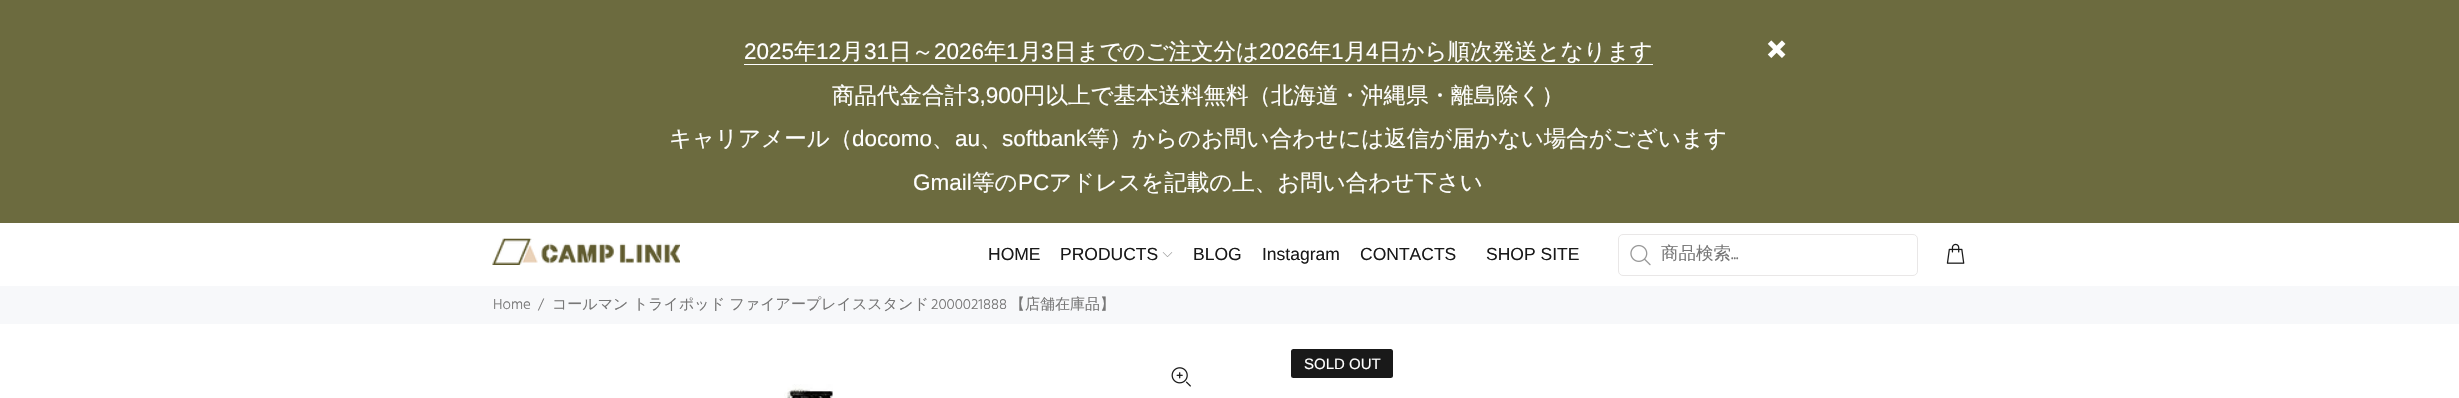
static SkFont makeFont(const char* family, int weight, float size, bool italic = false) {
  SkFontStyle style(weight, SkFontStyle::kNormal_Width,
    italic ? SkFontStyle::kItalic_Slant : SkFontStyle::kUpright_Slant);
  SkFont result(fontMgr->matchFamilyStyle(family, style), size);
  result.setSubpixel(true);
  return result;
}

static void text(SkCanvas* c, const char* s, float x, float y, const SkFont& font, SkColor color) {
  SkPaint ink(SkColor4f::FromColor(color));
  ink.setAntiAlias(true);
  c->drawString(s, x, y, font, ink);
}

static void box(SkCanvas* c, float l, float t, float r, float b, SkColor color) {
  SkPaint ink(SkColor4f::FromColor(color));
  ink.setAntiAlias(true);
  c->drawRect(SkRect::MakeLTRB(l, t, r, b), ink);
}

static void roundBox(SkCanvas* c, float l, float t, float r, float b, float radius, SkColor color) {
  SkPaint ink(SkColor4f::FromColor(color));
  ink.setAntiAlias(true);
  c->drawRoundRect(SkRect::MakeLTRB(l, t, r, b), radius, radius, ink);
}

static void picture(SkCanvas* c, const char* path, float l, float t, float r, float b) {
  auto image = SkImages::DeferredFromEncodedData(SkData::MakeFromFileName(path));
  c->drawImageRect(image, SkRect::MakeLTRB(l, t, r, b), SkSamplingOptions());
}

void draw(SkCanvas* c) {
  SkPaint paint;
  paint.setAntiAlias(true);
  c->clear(0xffffffff);
  box(c, 0, 0, 2459, 223, 0xff6c6b3f);
  SkFont face1 = makeFont("Liberation Sans", 400, 22.5f);
  text(c, "2025", 744, 59, face1, 0xffffffff);
  SkFont face2 = makeFont("WenQuanYi Zen Hei", 500, 22.5f);
  text(c, "年", 794, 59, face2, 0xffffffff);
  text(c, "12", 816, 59, face1, 0xffffffff);
  text(c, "月", 841, 59, face2, 0xffffffff);
  text(c, "31", 864, 59, face1, 0xffffffff);
  text(c, "日～", 889, 59, face2, 0xffffffff);
  text(c, "2026", 934, 59, face1, 0xffffffff);
  text(c, "年", 984, 59, face2, 0xffffffff);
  text(c, "1", 1006, 59, face1, 0xffffffff);
  text(c, "月", 1019, 59, face2, 0xffffffff);
  text(c, "3", 1041, 59, face1, 0xffffffff);
  text(c, "日までのご注文分は", 1054, 59, face2, 0xffffffff);
  text(c, "2026", 1259, 59, face1, 0xffffffff);
  text(c, "年", 1309, 59, face2, 0xffffffff);
  text(c, "1", 1331, 59, face1, 0xffffffff);
  text(c, "月", 1344, 59, face2, 0xffffffff);
  text(c, "4", 1366, 59, face1, 0xffffffff);
  text(c, "日から順次発送となります", 1379, 59, face2, 0xffffffff);
  box(c, 744, 64, 1653, 65, 0xffffffff);
  text(c, "商品代金合計", 832, 103, face2, 0xffffffff);
  text(c, "3,900", 967, 103, face1, 0xffffffff);
  text(c, "円以上で基本送料無料（北海道・沖縄県・離島除く）", 1023, 103, face2, 0xffffffff);
  text(c, "キャリアメール（", 669, 146, face2, 0xffffffff);
  text(c, "docomo", 852, 146, face1, 0xffffffff);
  text(c, "、", 932, 146, face2, 0xffffffff);
  text(c, "au", 955, 146, face1, 0xffffffff);
  text(c, "、", 980, 146, face2, 0xffffffff);
  text(c, "softbank", 1002, 146, face1, 0xffffffff);
  text(c, "等）からのお問い合わせには返信が届かない場合がございます", 1087, 146, face2, 0xffffffff);
  text(c, "Gmail", 913, 190, face1, 0xffffffff);
  text(c, "等の", 972, 190, face2, 0xffffffff);
  text(c, "PC", 1018, 190, face1, 0xffffffff);
  text(c, "アドレスを記載の上、お問い合わせ下さい", 1049, 190, face2, 0xffffffff);
  picture(c, "img_01.png", 1767, 40, 1786, 58);
  picture(c, "img_02.png", 492, 238, 680, 265);
  SkFont face3 = makeFont("Liberation Sans", 400, 17.5f);
  text(c, "HOME", 988, 260, face3, 0xff191919);
  text(c, "PRODUCTS", 1060, 260, face3, 0xff191919);
  picture(c, "img_03.png", 1162, 252, 1173, 257);
  text(c, "BLOG", 1193, 260, face3, 0xff191919);
  text(c, "Instagram", 1262, 260, face3, 0xff191919);
  text(c, "CONTACTS", 1360, 260, face3, 0xff191919);
  text(c, "SHOP SITE", 1486, 260, face3, 0xff191919);
  paint.setStyle(SkPaint::kStroke_Style);
  paint.setStrokeWidth(1);
  paint.setColor(0xffe9e7e7);
  c->drawRoundRect(SkRect::MakeLTRB(1618.5f, 234.5f, 1917.5f, 275.5f), 4.5f, 4.5f, paint);
  picture(c, "img_04.png", 1630, 244, 1651, 266);
  SkFont face4 = makeFont("WenQuanYi Zen Hei", 500, 17.5f);
  text(c, "商品検索", 1661, 259, face4, 0xff777777);
  SkFont face5 = makeFont("Hind", 300, 17.5f);
  text(c, "...", 1731, 259, face5, 0xff777777);
  picture(c, "img_05.png", 1946, 243, 1965, 264);
  box(c, 0, 286, 2459, 324, 0xfff7f8fa);
  SkFont face6 = makeFont("Hind", 300, 15);
  text(c, "Home", 493, 309, face6, 0xff777777);
  text(c, "/", 538, 309, face6, 0xff777777);
  SkFont face7 = makeFont("WenQuanYi Zen Hei", 500, 15);
  text(c, "コールマン トライポッド ファイアープレイススタンド", 552, 309, face7, 0xff777777);
  text(c, "2000021888", 931, 309, face6, 0xff777777);
  text(c, "【店舗在庫品】", 1010, 309, face7, 0xff777777);
  roundBox(c, 1291, 349, 1393, 378, 2.5f, 0xff191919);
  SkFont face8 = makeFont("Liberation Sans", 400, 15);
  text(c, "SOLD OUT", 1304, 369, face8, 0xffffffff);
  picture(c, "img_06.png", 1171, 367, 1191, 387);
  picture(c, "img_07.png", 784, 384, 833, 398);
}
